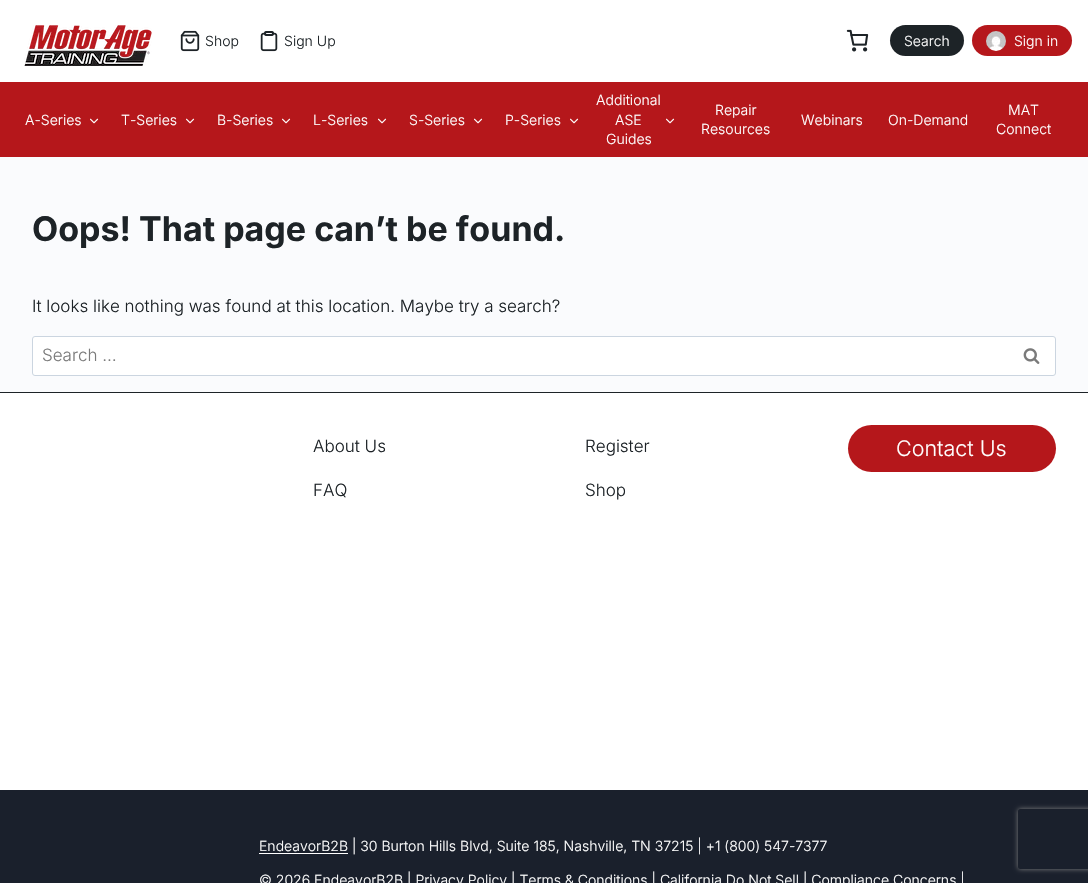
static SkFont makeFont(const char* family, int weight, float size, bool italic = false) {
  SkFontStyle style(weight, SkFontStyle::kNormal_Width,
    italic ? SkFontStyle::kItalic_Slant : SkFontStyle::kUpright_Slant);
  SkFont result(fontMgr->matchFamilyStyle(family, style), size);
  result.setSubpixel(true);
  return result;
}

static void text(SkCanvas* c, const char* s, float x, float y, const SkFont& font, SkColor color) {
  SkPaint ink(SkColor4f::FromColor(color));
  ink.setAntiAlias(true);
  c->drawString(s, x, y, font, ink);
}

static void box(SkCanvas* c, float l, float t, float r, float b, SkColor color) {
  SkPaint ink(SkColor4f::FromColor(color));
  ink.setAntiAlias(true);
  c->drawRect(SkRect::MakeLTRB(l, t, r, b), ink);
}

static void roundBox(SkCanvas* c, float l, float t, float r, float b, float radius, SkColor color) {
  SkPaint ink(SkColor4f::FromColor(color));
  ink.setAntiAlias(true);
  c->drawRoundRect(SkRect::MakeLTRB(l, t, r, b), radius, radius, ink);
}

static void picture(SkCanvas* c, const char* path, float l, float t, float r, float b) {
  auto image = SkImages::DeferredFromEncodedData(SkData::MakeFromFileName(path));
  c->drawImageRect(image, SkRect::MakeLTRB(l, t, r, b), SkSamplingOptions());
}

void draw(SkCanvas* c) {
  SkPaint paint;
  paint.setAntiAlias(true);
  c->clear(0xfffafbfd);
  box(c, 0, 0, 1088, 82, 0xffffffff);
  picture(c, "img_01.png", 24, 25, 152, 66);
  picture(c, "img_02.png", 180, 30, 200, 52);
  SkFont face1 = makeFont("Inter", 300, 14.05f);
  text(c, "Shop", 205, 46, face1, 0xff1d2327);
  picture(c, "img_03.png", 260, 31, 278, 52);
  text(c, "Sign Up", 284, 46, face1, 0xff1d2327);
  picture(c, "img_04.png", 846, 29, 869, 52);
  roundBox(c, 890, 25, 964, 56, 15.5f, 0xff1d2327);
  SkFont face2 = makeFont("Inter", 300, 14);
  text(c, "Search", 904, 46, face2, 0xffffffff);
  roundBox(c, 972, 25, 1072, 56, 15.5f, 0xffb5171b);
  picture(c, "img_05.png", 986, 31, 1006, 51);
  text(c, "Sign in", 1014, 46, face2, 0xffffffff);
  box(c, 0, 82, 1088, 157, 0xffb5171b);
  text(c, "A-Series", 25, 125, face1, 0xffffffff);
  picture(c, "img_06.png", 90, 118, 99, 124);
  text(c, "T-Series", 121, 125, face1, 0xffffffff);
  picture(c, "img_06.png", 186, 118, 195, 124);
  text(c, "B-Series", 217, 125, face1, 0xffffffff);
  picture(c, "img_06.png", 282, 118, 291, 124);
  text(c, "L-Series", 313, 125, face1, 0xffffffff);
  picture(c, "img_06.png", 378, 118, 387, 124);
  text(c, "S-Series", 409, 125, face1, 0xffffffff);
  picture(c, "img_06.png", 474, 118, 483, 124);
  text(c, "P-Series", 505, 125, face1, 0xffffffff);
  picture(c, "img_06.png", 570, 118, 579, 124);
  text(c, "Additional", 596, 105, face1, 0xffffffff);
  text(c, "ASE", 615, 125, face1, 0xffffffff);
  text(c, "Guides", 606, 144, face1, 0xffffffff);
  picture(c, "img_06.png", 666, 118, 675, 124);
  text(c, "Repair", 715, 115, face1, 0xffffffff);
  text(c, "Resources", 701, 134, face1, 0xffffffff);
  text(c, "Webinars", 801, 125, face1, 0xffffffff);
  text(c, "On-Demand", 888, 125, face1, 0xffffffff);
  text(c, "MAT", 1008, 115, face1, 0xffffffff);
  text(c, "Connect", 996, 134, face1, 0xffffffff);
  SkFont face3 = makeFont("Inter", 700, 34);
  text(c, "Oops! That page can’t be found.", 32, 241, face3, 0xff1d2327);
  SkFont face4 = makeFont("Inter", 300, 17);
  text(c, "It looks like nothing was found at this location. Maybe try a search?", 32, 312, face4, 0xff1d2327);
  paint.setColor(0xffffffff);
  c->drawRoundRect(SkRect::MakeLTRB(32.5f, 336.5f, 1055.5f, 375.5f), 2.5f, 2.5f, paint);
  paint.setStyle(SkPaint::kStroke_Style);
  paint.setStrokeWidth(1);
  paint.setColor(0xffcbd5e0);
  c->drawRoundRect(SkRect::MakeLTRB(32.5f, 336.5f, 1055.5f, 375.5f), 2.5f, 2.5f, paint);
  text(c, "Search …", 42, 361, face4, 0xff7a7a7a);
  picture(c, "img_07.png", 1023, 348, 1040, 364);
  box(c, 0, 393, 1088, 790, 0xffffffff);
  box(c, 0, 392, 1088, 393, 0xff1d2327);
  text(c, "About Us", 313, 452, face4, 0xff1d2327);
  text(c, "FAQ", 313, 496, face4, 0xff1d2327);
  text(c, "Register", 585, 452, face4, 0xff1d2327);
  text(c, "Shop", 585, 496, face4, 0xff1d2327);
  roundBox(c, 848, 425, 1056, 472, 23.5f, 0xffb5171b);
  SkFont face5 = makeFont("Inter", 300, 21.5f);
  text(c, "Contact Us", 896, 456, face5, 0xffffffff);
  box(c, 0, 790, 1088, 883, 0xff1a202c);
  box(c, 259, 853, 348, 854, 0xffffffff);
  text(c, "EndeavorB2B | 30 Burton Hills Blvd, Suite 185, Nashville, TN 37215 | +1 (800) 547-7377", 259, 851, face1, 0xffffffff);
  text(c, "© 2026 EndeavorB2B | Privacy Policy | Terms & Conditions | California Do Not Sell | Compliance Concerns |", 259, 885, face1, 0xffffffff);
  c->save();
  c->clipPath(SkPathBuilder(SkPathFillType::kEvenOdd).moveTo(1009, 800).lineTo(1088, 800).lineTo(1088, 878).lineTo(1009, 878).close().moveTo(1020, 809).lineTo(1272, 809).cubicTo(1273, 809, 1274, 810, 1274, 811).lineTo(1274, 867).cubicTo(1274, 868, 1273, 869, 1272, 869).lineTo(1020, 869).cubicTo(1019, 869, 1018, 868, 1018, 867).lineTo(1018, 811).cubicTo(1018, 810, 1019, 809, 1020, 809).close().detach(), true);
  paint.setStyle(SkPaint::kFill_Style);
  paint.setColor(0xff808080);
  paint.setMaskFilter(SkMaskFilter::MakeBlur(kNormal_SkBlurStyle, 2.5f));
  c->drawRoundRect(SkRect::MakeLTRB(1018, 809, 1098, 869), 2, 2, paint);
  paint.setMaskFilter(nullptr);
  c->restore();
}
